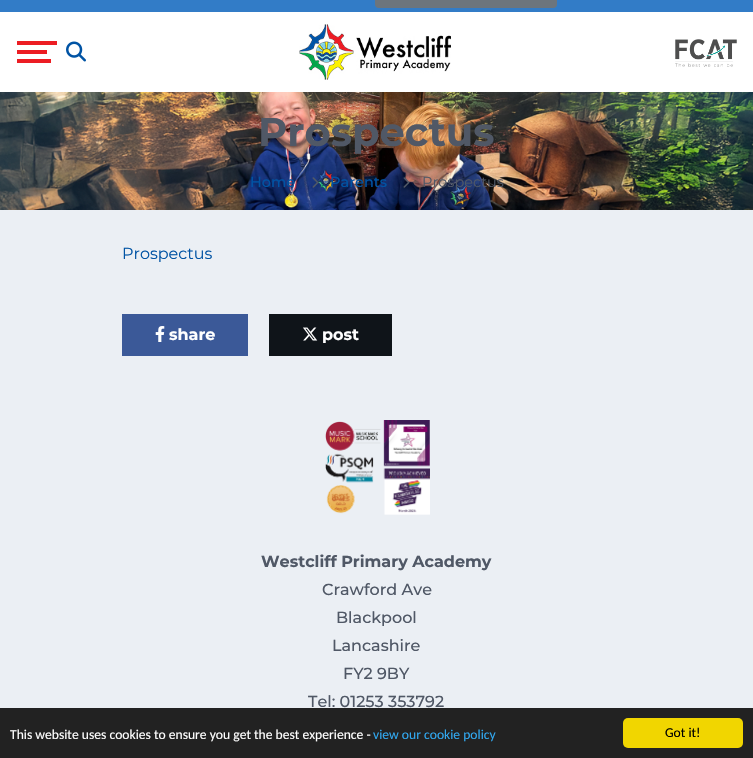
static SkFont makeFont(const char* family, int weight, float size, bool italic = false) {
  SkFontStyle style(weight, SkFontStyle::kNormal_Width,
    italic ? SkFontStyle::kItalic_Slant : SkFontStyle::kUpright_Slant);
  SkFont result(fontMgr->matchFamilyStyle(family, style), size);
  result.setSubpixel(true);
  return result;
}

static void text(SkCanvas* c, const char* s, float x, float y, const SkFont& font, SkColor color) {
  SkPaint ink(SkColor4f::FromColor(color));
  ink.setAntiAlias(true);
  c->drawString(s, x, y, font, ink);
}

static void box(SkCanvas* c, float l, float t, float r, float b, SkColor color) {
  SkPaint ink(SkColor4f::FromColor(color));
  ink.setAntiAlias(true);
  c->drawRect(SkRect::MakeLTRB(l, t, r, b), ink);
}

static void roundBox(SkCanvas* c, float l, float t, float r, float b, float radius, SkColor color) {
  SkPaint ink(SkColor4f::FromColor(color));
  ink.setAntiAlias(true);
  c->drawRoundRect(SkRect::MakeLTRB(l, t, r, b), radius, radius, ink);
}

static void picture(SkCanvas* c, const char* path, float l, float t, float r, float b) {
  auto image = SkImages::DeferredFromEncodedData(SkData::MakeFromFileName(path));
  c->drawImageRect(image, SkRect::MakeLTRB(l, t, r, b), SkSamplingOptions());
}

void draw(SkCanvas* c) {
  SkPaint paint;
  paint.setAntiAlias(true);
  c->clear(0xffebeff4);
  box(c, 0, 0, 753, 12, 0xff327cc7);
  roundBox(c, 375, -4, 557, 8, 4, 0xff6c757d);
  box(c, 0, 12, 753, 92, 0xffffffff);
  box(c, 17, 41, 57, 45, 0xffec1d23);
  box(c, 17, 50, 47, 54, 0xffec1d23);
  box(c, 17, 59, 51, 63, 0xffec1d23);
  picture(c, "img_01.png", 66, 41, 86, 62);
  picture(c, "img_02.png", 299, 24, 451, 80);
  picture(c, "img_03.png", 675, 39, 737, 67);
  picture(c, "img_04.png", 0, 92, 753, 210);
  SkFont face1 = makeFont("Montserrat", 700, 40);
  text(c, "Prospectus", 258, 146, face1, 0xff505866);
  SkFont face2 = makeFont("Montserrat", 500, 14.5f);
  text(c, "Home", 250, 187, face2, 0xff0053a4);
  picture(c, "img_05.png", 312, 177, 319, 188);
  text(c, "Parents", 330, 187, face2, 0xff0053a4);
  picture(c, "img_06.png", 403, 177, 410, 188);
  SkFont face3 = makeFont("Montserrat", 400, 14.5f);
  text(c, "Prospectus", 422, 187, face3, 0xff505866);
  SkFont face4 = makeFont("Montserrat", 400, 16);
  text(c, "Prospectus", 122, 259, face4, 0xff0053a4);
  box(c, 122, 314, 248, 356, 0xff3b5998);
  picture(c, "img_07.png", 155, 326, 165, 342);
  SkFont face5 = makeFont("Montserrat", 700, 16);
  text(c, "share", 169, 340, face5, 0xffffffff);
  box(c, 269, 314, 392, 356, 0xff0f1419);
  picture(c, "img_08.png", 303, 327, 318, 341);
  text(c, "post", 322, 340, face5, 0xffffffff);
  picture(c, "img_09.png", 325, 420, 430, 515);
  text(c, "Westcliff Primary Academy", 261, 567, face5, 0xff505866);
  SkFont face6 = makeFont("Montserrat", 500, 16);
  text(c, "Crawford Ave", 322, 595, face6, 0xff505866);
  text(c, "Blackpool", 336, 623, face6, 0xff505866);
  text(c, "Lancashire", 332, 651, face6, 0xff505866);
  text(c, "FY2 9BY", 343, 679, face6, 0xff505866);
  text(c, "Tel: 01253 353792", 308, 707, face6, 0xff505866);
  box(c, 0, 708, 753, 758, 0xff222222);
  SkFont face7 = makeFont("Carlito", 400, 13.6f);
  text(c, "This website uses cookies to ensure you get the best experience -", 10, 739, face7, 0xffffffff);
  text(c, "view our cookie policy", 373, 739, face7, 0xff31a8f0);
  roundBox(c, 623, 718, 743, 748, 5, 0xfff1d600);
  text(c, "Got it!", 665, 737, face7, 0xff000000);
}
